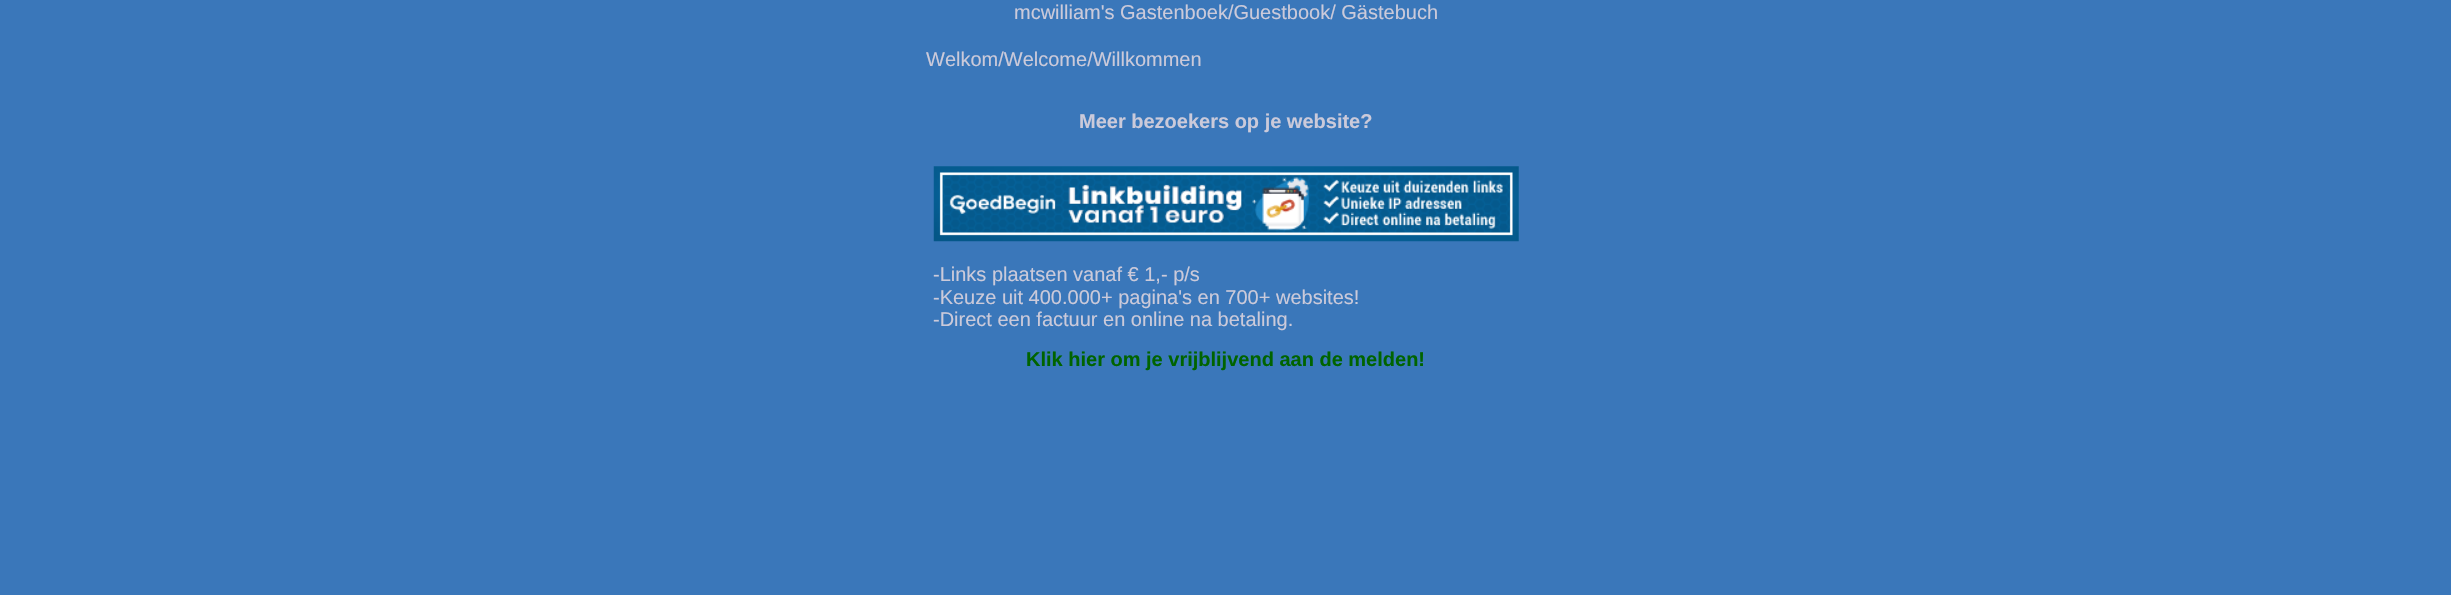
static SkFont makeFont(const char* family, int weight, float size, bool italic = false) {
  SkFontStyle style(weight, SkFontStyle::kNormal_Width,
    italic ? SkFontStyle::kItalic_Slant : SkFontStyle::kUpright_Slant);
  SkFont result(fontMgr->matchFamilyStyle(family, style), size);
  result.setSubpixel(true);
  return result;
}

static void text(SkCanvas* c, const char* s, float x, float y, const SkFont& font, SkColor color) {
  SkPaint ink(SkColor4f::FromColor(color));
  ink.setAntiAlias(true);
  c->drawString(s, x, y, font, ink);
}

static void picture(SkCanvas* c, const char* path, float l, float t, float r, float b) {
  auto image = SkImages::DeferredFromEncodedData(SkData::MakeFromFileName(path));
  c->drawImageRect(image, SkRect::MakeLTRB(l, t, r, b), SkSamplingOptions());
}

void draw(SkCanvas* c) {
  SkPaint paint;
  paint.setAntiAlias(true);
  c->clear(0xff3a77ba);
  SkFont face1 = makeFont("Liberation Sans", 400, 20);
  text(c, "mcwilliam's Gastenboek/Guestbook/ Gästebuch", 1014, 19, face1, 0xffcbcada);
  text(c, "Welkom/Welcome/Willkommen", 926, 66, face1, 0xffcbcada);
  SkFont face2 = makeFont("Liberation Sans", 700, 20);
  text(c, "Meer bezoekers op je website?", 1079, 128, face2, 0xffcbcada);
  picture(c, "img_01.png", 933, 166, 1519, 242);
  text(c, "-Links plaatsen vanaf € 1,- p/s", 933, 281, face1, 0xffcbcada);
  text(c, "-Keuze uit 400.000+ pagina's en 700+ websites!", 933, 304, face1, 0xffcbcada);
  text(c, "-Direct een factuur en online na betaling.", 933, 326, face1, 0xffcbcada);
  text(c, "Klik hier om je vrijblijvend aan de melden!", 1026, 366, face2, 0xff006400);
}
